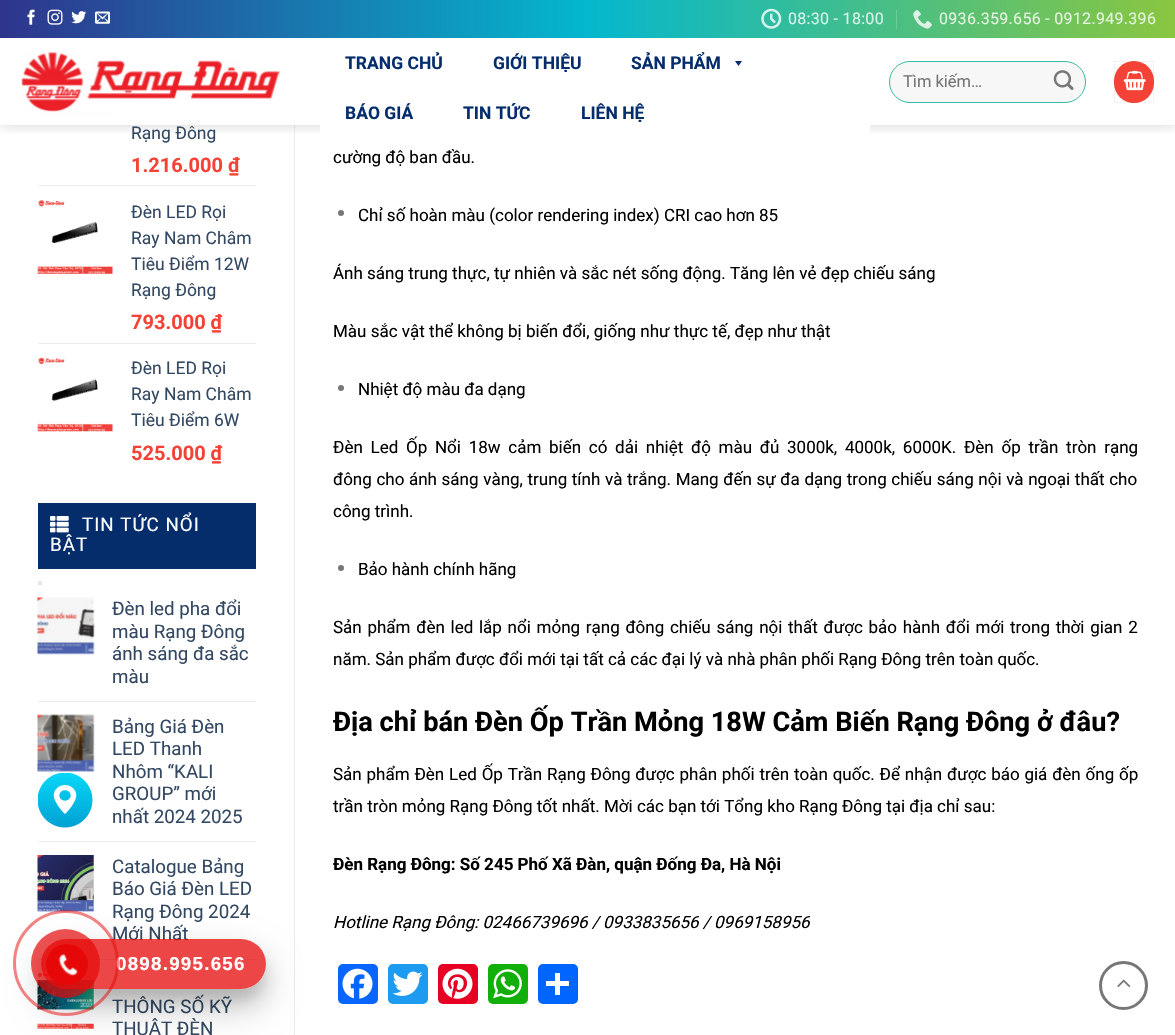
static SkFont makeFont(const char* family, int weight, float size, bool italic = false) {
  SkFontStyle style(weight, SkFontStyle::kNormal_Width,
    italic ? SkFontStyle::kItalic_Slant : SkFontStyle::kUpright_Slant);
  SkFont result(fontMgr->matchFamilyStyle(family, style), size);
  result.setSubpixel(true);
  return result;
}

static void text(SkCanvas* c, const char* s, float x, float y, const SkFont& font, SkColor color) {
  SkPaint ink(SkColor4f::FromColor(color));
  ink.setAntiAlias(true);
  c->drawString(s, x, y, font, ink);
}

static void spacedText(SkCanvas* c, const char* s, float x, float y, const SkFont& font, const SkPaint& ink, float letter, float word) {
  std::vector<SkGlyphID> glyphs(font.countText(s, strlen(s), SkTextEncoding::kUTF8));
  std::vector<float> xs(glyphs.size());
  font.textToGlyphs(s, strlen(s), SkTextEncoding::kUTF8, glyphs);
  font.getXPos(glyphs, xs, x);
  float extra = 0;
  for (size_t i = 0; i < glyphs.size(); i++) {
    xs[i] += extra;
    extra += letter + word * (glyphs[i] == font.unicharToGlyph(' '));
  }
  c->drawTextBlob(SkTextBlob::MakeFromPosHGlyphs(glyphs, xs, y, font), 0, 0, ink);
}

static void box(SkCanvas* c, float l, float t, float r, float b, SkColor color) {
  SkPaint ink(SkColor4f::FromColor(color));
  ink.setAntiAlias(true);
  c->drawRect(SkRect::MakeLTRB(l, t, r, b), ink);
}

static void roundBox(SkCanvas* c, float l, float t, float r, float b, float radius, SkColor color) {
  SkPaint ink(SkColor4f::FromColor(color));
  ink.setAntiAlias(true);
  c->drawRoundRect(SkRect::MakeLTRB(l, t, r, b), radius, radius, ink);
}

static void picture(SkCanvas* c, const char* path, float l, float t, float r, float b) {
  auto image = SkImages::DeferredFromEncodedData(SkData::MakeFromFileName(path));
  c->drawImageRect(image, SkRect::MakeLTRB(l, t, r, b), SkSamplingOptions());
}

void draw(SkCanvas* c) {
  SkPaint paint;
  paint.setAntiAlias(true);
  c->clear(0xffffffff);
  picture(c, "img_10.png", 37, 44, 113, 118);
  box(c, 294, 38, 295, 1035, 0xffececec);
  c->save();
  c->clipRect(SkRect::MakeLTRB(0, 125, 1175, 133));
  paint.setColor(0x26000000);
  paint.setMaskFilter(SkMaskFilter::MakeBlur(kNormal_SkBlurStyle, 6));
  c->drawRect(SkRect::MakeLTRB(1, 1, 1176, 126), paint);
  paint.setMaskFilter(nullptr);
  c->restore();
  box(c, 37, 38, 295, 125, 0xe6ffffff);
  {
    const SkColor colors[] = {0xff2f348d, 0xff04b7ce, 0xff8ac640};
    const float stops[] = {0, 0.5f, 1};
    const SkPoint ends[] = {{0, 19}, {1175, 19}};
    paint.setShader(SkGradientShader::MakeLinear(ends, colors, stops, 3, SkTileMode::kClamp));
    paint.setAlpha(255);
  }
  c->drawRect(SkRect::MakeLTRB(0, 0, 1175, 38), paint);
  picture(c, "img_01.png", 27, 9, 35, 25);
  picture(c, "img_02.png", 47, 9, 63, 25);
  picture(c, "img_03.png", 71, 11, 87, 24);
  picture(c, "img_04.png", 95, 11, 110, 24);
  picture(c, "img_05.png", 761, 8, 782, 29);
  SkFont face1 = makeFont("Roboto", 400, 16);
  paint.setShader(nullptr);
  paint.setColor(0xffd8f2e9);
  spacedText(c, "08:30 - 18:00", 788, 24, face1, paint, 0.3f, 0);
  box(c, 896, 10, 897, 29, 0xff6ecc9c);
  picture(c, "img_06.png", 913, 10, 932, 29);
  paint.setColor(0xffe2f3df);
  spacedText(c, "0936.359.656 - 0912.949.396", 939, 24, face1, paint, 0.3f, 0);
  box(c, 37, 44, 113, 118, 0xe6ffffff);
  picture(c, "img_07.png", 21, 52, 280, 112);
  box(c, 320, 125, 870, 135, 0xffffffff);
  SkFont face2 = makeFont("Roboto", 700, 17.5f);
  text(c, "TRANG CHỦ", 345, 69, face2, 0xff052c6b);
  text(c, "GIỚI THIỆU", 493, 69, face2, 0xff052c6b);
  text(c, "SẢN PHẨM", 631, 69, face2, 0xff052c6b);
  paint.setColor(0xff052c6b);
  c->drawPath(SkPathBuilder().moveTo(742, 61).lineTo(738.5f, 66).lineTo(735, 61).close().detach(), paint);
  text(c, "BÁO GIÁ", 345, 119, face2, 0xff052c6b);
  text(c, "TIN TỨC", 463, 119, face2, 0xff052c6b);
  text(c, "LIÊN HỆ", 581, 119, face2, 0xff052c6b);
  paint.setColor(0xfff7f7f7);
  c->drawRoundRect(SkRect::MakeLTRB(889.5f, 61.5f, 1085.5f, 102.5f), 20.5f, 20.5f, paint);
  paint.setStyle(SkPaint::kStroke_Style);
  paint.setStrokeWidth(1);
  paint.setColor(0xff36bba6);
  c->drawRoundRect(SkRect::MakeLTRB(889.5f, 61.5f, 1085.5f, 102.5f), 20.5f, 20.5f, paint);
  SkFont face3 = makeFont("Roboto", 400, 16.5f);
  text(c, "Tìm kiếm…", 903, 87, face3, 0xff757575);
  picture(c, "img_08.png", 1053, 70, 1074, 90);
  roundBox(c, 1114, 61, 1154, 103, 20, 0xfff44336);
  paint.setColor(0x0d000000);
  c->drawRect(SkRect::MakeLTRB(1114.5f, 61.5f, 1153.5f, 102.5f), paint);
  picture(c, "img_09.png", 1123, 70, 1146, 91);
  SkFont face4 = makeFont("Roboto", 400, 17.5f);
  text(c, "Rạng Đông", 131, 139, face4, 0xff334862);
  SkFont face5 = makeFont("Roboto", 700, 20);
  text(c, "1.216.000 ₫", 131, 172, face5, 0xfff44336);
  box(c, 38, 185, 256, 186, 0xffececec);
  picture(c, "img_11.png", 37, 200, 113, 274);
  text(c, "Đèn LED Rọi", 131, 218, face4, 0xff334862);
  text(c, "Ray Nam Châm", 131, 244, face4, 0xff334862);
  text(c, "Tiêu Điểm 12W", 131, 270, face4, 0xff334862);
  text(c, "Rạng Đông", 131, 296, face4, 0xff334862);
  text(c, "793.000 ₫", 131, 329, face5, 0xfff44336);
  box(c, 38, 343, 256, 344, 0xffececec);
  picture(c, "img_12.png", 37, 357, 113, 432);
  text(c, "Đèn LED Rọi", 131, 374, face4, 0xff334862);
  text(c, "Ray Nam Châm", 131, 400, face4, 0xff334862);
  text(c, "Tiêu Điểm 6W", 131, 426, face4, 0xff334862);
  text(c, "525.000 ₫", 131, 460, face5, 0xfff44336);
  box(c, 38, 503, 256, 569, 0xff052c6b);
  picture(c, "img_13.png", 50, 516, 69, 533);
  SkFont face6 = makeFont("Roboto", 400, 18.75f);
  paint.setStyle(SkPaint::kFill_Style);
  paint.setColor(0xffffffff);
  spacedText(c, "TIN TỨC NỔI", 82, 531, face6, paint, 1, 0);
  spacedText(c, "BẬT", 50, 551, face6, paint, 1, 0);
  box(c, 38, 581, 42, 585, 0xffe6e6e6);
  picture(c, "img_14.png", 37, 597, 95, 655);
  text(c, "Đèn led pha đổi", 112, 615, face6, 0xff334862);
  text(c, "màu Rạng Đông", 112, 638, face6, 0xff334862);
  text(c, "ánh sáng đa sắc", 112, 660, face6, 0xff334862);
  text(c, "màu", 112, 683, face6, 0xff334862);
  box(c, 38, 701, 256, 702, 0xffececec);
  picture(c, "img_15.png", 37, 714, 95, 772);
  text(c, "Bảng Giá Đèn", 112, 733, face6, 0xff334862);
  text(c, "LED Thanh", 112, 755, face6, 0xff334862);
  text(c, "Nhôm “KALI", 112, 778, face6, 0xff334862);
  text(c, "GROUP” mới", 112, 800, face6, 0xff334862);
  text(c, "nhất 2024 2025", 112, 823, face6, 0xff334862);
  box(c, 38, 841, 256, 842, 0xffececec);
  picture(c, "img_16.png", 37, 855, 94, 912);
  text(c, "Catalogue Bảng", 112, 873, face6, 0xff334862);
  text(c, "Báo Giá Đèn LED", 112, 895, face6, 0xff334862);
  text(c, "Rạng Đông 2024", 112, 918, face6, 0xff334862);
  text(c, "Mới Nhất", 112, 940, face6, 0xff334862);
  box(c, 38, 959, 256, 960, 0xffececec);
  picture(c, "img_17.png", 37, 972, 94, 1029);
  text(c, "THÔNG SỐ KỸ", 112, 1013, face6, 0xff334862);
  text(c, "THUẬT ĐÈN", 112, 1035, face6, 0xff334862);
  SkFont face7 = makeFont("Roboto", 400, 17);
  text(c, "cường độ ban đầu.", 333, 163, face7, 0xff000000);
  paint.setColor(0xff777777);
  c->drawCircle(341, 213, 3, paint);
  text(c, "Chỉ số hoàn màu (color rendering index) CRI cao hơn 85", 358, 221, face7, 0xff000000);
  text(c, "Ánh sáng trung thực, tự nhiên và sắc nét sống động. Tăng lên vẻ đẹp chiếu sáng", 333, 279, face7, 0xff000000);
  text(c, "Màu sắc vật thể không bị biến đổi, giống như thực tế, đẹp như thật", 333, 337, face7, 0xff000000);
  c->drawCircle(341, 388, 3, paint);
  text(c, "Nhiệt độ màu đa dạng", 358, 395, face7, 0xff000000);
  paint.setColor(0xff000000);
  spacedText(c, "Đèn Led Ốp Nổi 18w cảm biến có dải nhiệt độ màu đủ 3000k, 4000k, 6000K. Đèn ốp trần tròn rạng", 333, 453, face7, paint, 0, 3.5f);
  spacedText(c, "đông cho ánh sáng vàng, trung tính và trắng. Mang đến sự đa dạng trong chiếu sáng nội và ngoại thất cho", 333, 485, face7, paint, 0, 0.4f);
  text(c, "công trình.", 333, 517, face7, 0xff000000);
  paint.setColor(0xff777777);
  c->drawCircle(341, 568, 3, paint);
  text(c, "Bảo hành chính hãng", 358, 575, face7, 0xff000000);
  paint.setColor(0xff000000);
  spacedText(c, "Sản phẩm đèn led lắp nổi mỏng rạng đông chiếu sáng nội thất được bảo hành đổi mới trong thời gian 2", 333, 633, face7, paint, 0, 1.5f);
  text(c, "năm. Sản phẩm được đổi mới tại tất cả các đại lý và nhà phân phối Rạng Đông trên toàn quốc.", 333, 665, face7, 0xff000000);
  SkFont face8 = makeFont("Roboto", 700, 27.2f);
  text(c, "Địa chỉ bán Đèn Ốp Trần Mỏng 18W Cảm Biến Rạng Đông ở đâu?", 333, 731, face8, 0xff000000);
  spacedText(c, "Sản phẩm Đèn Led Ốp Trần Rạng Đông được phân phối trên toàn quốc. Để nhận được báo giá đèn ống ốp", 333, 780, face7, paint, 0, 0.6f);
  text(c, "trần tròn mỏng Rạng Đông tốt nhất. Mời các bạn tới Tổng kho Rạng Đông tại địa chỉ sau:", 333, 812, face7, 0xff000000);
  SkFont face9 = makeFont("Roboto", 700, 17);
  text(c, "Đèn Rạng Đông: Số 245 Phố Xã Đàn, quận Đống Đa, Hà Nội", 333, 870, face9, 0xff000000);
  SkFont face10 = makeFont("Roboto", 400, 17, true);
  text(c, "Hotline Rạng Đông: 02466739696 / 0933835656 / 0969158956", 333, 928, face10, 0xff000000);
  roundBox(c, 338, 964, 378, 1004, 5, 0xff0866ff);
  picture(c, "img_18.png", 342, 968, 373, 999);
  roundBox(c, 388, 964, 428, 1004, 5, 0xff1d9bf0);
  picture(c, "img_19.png", 392, 971, 423, 996);
  roundBox(c, 438, 964, 478, 1004, 5, 0xffe60023);
  picture(c, "img_20.png", 442, 968, 473, 999);
  roundBox(c, 488, 964, 528, 1004, 5, 0xff12af0a);
  picture(c, "img_21.png", 493, 969, 522, 999);
  roundBox(c, 538, 964, 578, 1004, 5, 0xff0166ff);
  box(c, 555, 973, 560, 995, 0xffffffff);
  box(c, 546, 981, 569, 986, 0xffffffff);
  paint.setStyle(SkPaint::kStroke_Style);
  paint.setStrokeWidth(3);
  paint.setColor(0xff777777);
  c->drawCircle(1123.5f, 985.5f, 23, paint);
  picture(c, "img_22.png", 1117, 979, 1131, 988);
  picture(c, "img_23.png", 38, 773, 93, 828);
  c->save();
  c->clipPath(SkPathBuilder(SkPathFillType::kEvenOdd).moveTo(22, 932).lineTo(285, 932).lineTo(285, 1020).lineTo(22, 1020).close().moveTo(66, 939).lineTo(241, 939).cubicTo(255, 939, 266, 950, 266, 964).cubicTo(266, 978, 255, 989, 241, 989).lineTo(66, 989).cubicTo(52, 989, 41, 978, 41, 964).cubicTo(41, 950, 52, 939, 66, 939).close().detach(), true);
  paint.setStyle(SkPaint::kFill_Style);
  paint.setColor(0x1a000000);
  paint.setMaskFilter(SkMaskFilter::MakeBlur(kNormal_SkBlurStyle, 6));
  c->drawRoundRect(SkRect::MakeLTRB(41, 951, 266, 1001), 25, 25, paint);
  paint.setMaskFilter(nullptr);
  c->restore();
  c->save();
  c->clipPath(SkPathBuilder(SkPathFillType::kEvenOdd).moveTo(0, 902).lineTo(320, 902).lineTo(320, 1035).lineTo(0, 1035).close().moveTo(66, 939).lineTo(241, 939).cubicTo(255, 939, 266, 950, 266, 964).cubicTo(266, 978, 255, 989, 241, 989).lineTo(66, 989).cubicTo(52, 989, 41, 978, 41, 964).cubicTo(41, 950, 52, 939, 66, 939).close().detach(), true);
  paint.setColor(0x40000000);
  paint.setMaskFilter(SkMaskFilter::MakeBlur(kNormal_SkBlurStyle, 17.5f));
  c->drawRoundRect(SkRect::MakeLTRB(41, 956, 266, 1006), 25, 25, paint);
  paint.setMaskFilter(nullptr);
  c->restore();
  roundBox(c, 41, 939, 266, 989, 25, 0xbfe60808);
  SkFont face11 = makeFont("Liberation Sans", 700, 18.75f);
  paint.setColor(0xffffffff);
  spacedText(c, "0898.995.656", 116, 970, face11, paint, 1.25f, 0);
  paint.setStyle(SkPaint::kStroke_Style);
  paint.setColor(0x80e60808);
  c->drawCircle(66, 963, 51.5f, paint);
  paint.setStyle(SkPaint::kFill_Style);
  paint.setColor(0xb3e60808);
  c->drawCircle(65.5f, 963.5f, 34.5f, paint);
  roundBox(c, 46, 944, 88, 985, 20.5f, 0xffe60808);
  picture(c, "img_24.png", 58, 954, 78, 976);
}
